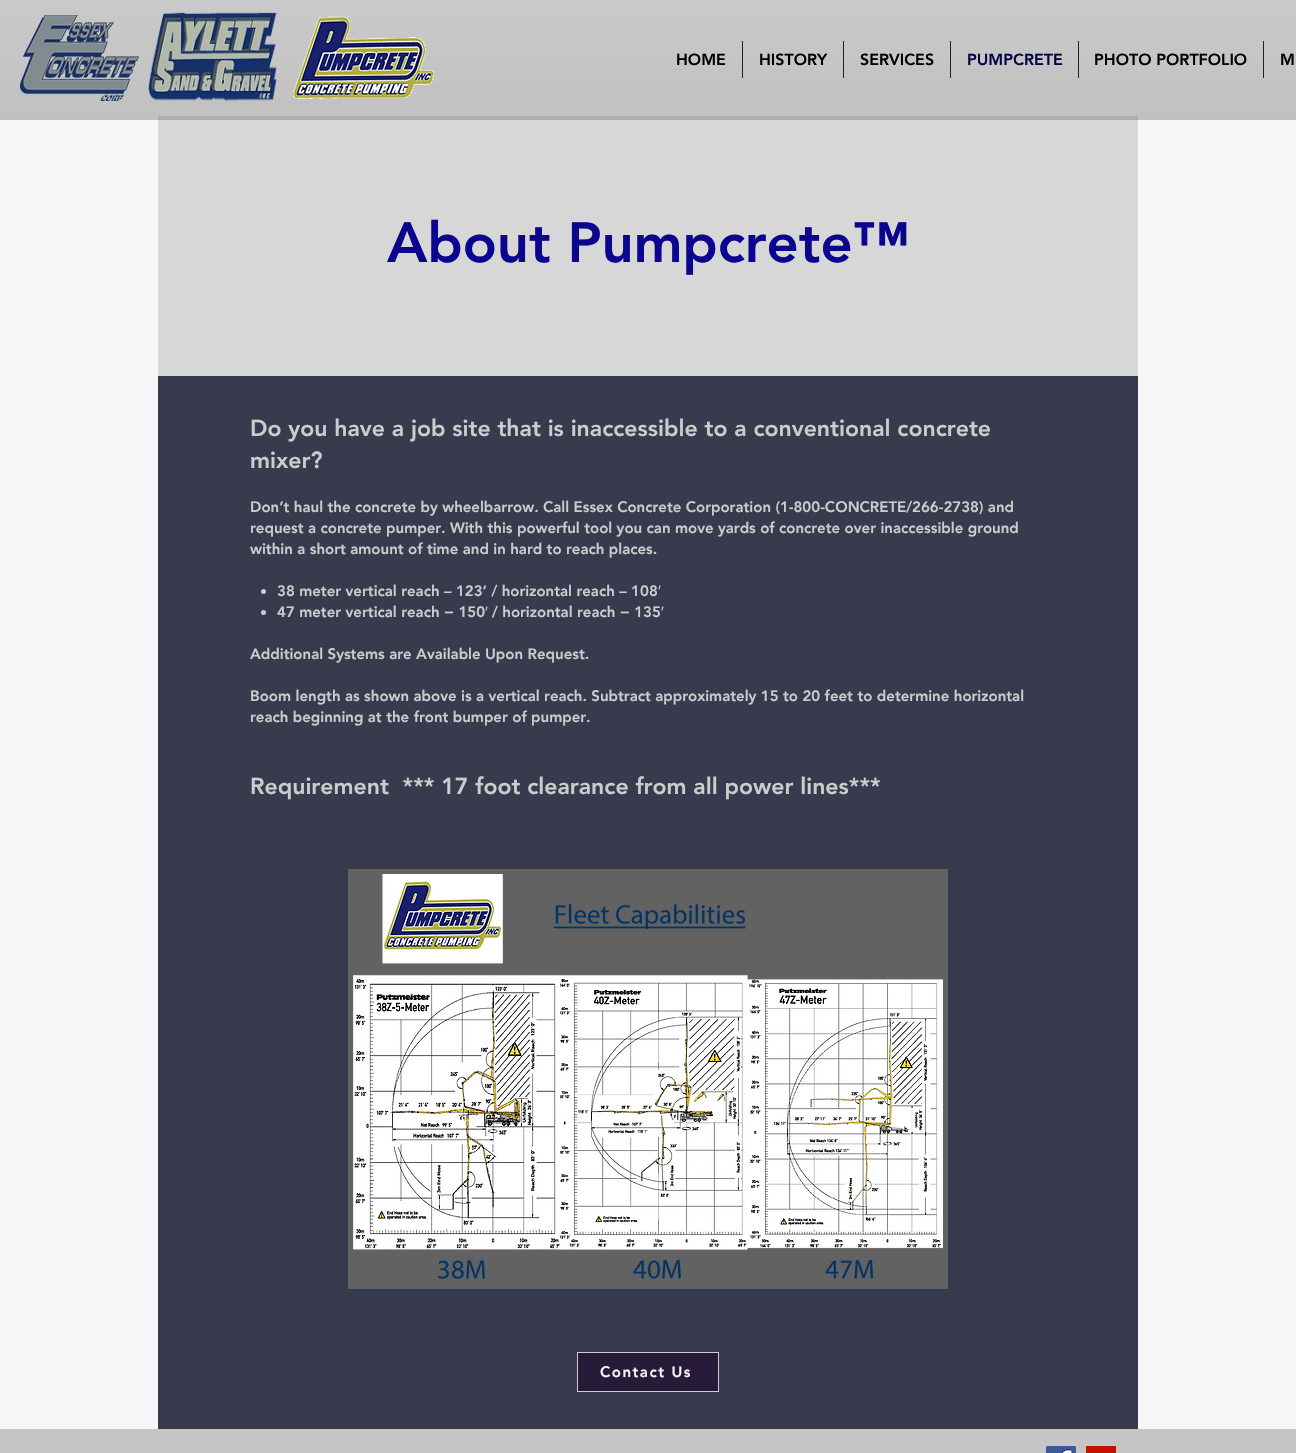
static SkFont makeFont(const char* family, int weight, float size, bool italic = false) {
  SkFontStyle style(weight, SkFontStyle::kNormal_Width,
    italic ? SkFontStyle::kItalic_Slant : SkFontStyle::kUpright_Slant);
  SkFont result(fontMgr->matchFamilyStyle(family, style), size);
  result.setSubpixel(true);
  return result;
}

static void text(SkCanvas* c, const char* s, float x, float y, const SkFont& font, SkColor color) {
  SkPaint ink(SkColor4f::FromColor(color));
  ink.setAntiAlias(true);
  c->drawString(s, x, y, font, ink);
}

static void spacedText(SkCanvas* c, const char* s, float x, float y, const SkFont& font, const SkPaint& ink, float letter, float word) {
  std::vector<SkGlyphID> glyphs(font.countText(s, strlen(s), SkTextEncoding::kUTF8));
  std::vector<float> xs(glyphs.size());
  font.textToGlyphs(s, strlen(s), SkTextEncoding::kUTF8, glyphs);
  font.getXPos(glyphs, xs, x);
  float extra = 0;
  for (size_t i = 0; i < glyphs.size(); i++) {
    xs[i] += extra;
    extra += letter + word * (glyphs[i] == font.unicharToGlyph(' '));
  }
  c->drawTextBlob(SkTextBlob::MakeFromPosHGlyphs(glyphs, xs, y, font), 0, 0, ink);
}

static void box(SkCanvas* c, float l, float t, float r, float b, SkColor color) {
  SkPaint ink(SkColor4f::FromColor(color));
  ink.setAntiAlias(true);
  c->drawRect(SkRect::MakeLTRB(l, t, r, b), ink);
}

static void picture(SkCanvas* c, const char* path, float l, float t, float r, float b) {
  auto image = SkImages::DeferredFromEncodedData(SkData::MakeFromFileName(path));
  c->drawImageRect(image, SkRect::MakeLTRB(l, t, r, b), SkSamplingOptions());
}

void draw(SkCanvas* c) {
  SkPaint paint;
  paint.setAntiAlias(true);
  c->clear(0xfff6f6f6);
  box(c, 0, 0, 1296, 120, 0xffb7b7b7);
  box(c, 158, 116, 1138, 120, 0xffa1a1a1);
  picture(c, "img_04.png", 0, 0, 1296, 120);
  picture(c, "img_01.png", 20, 15, 139, 101);
  picture(c, "img_02.png", 148, 12, 277, 101);
  picture(c, "img_03.png", 293, 16, 434, 99);
  SkFont face1 = makeFont("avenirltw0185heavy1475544", 900, 16);
  text(c, "HOME", 676, 65, face1, 0xff000000);
  box(c, 742, 41, 743, 78, 0xff281a39);
  text(c, "HISTORY", 759, 65, face1, 0xff000000);
  box(c, 843, 41, 844, 78, 0xff281a39);
  text(c, "SERVICES", 860, 65, face1, 0xff000000);
  box(c, 950, 41, 951, 78, 0xff281a39);
  text(c, "PUMPCRETE", 967, 65, face1, 0xff050247);
  box(c, 1078, 41, 1079, 78, 0xff281a39);
  text(c, "PHOTO PORTFOLIO", 1094, 65, face1, 0xff000000);
  box(c, 1263, 41, 1264, 78, 0xff281a39);
  text(c, "M", 1280, 65, face1, 0xff000000);
  box(c, 158, 120, 1138, 376, 0xffd7d7d7);
  SkFont face2 = makeFont("avenirltw0185heavy1475544", 900, 56);
  text(c, "About Pumpcrete™", 387, 262, face2, 0xff0a048f);
  box(c, 158, 376, 1138, 1429, 0xff373b4d);
  SkFont face3 = makeFont("avenirltw0185heavy1475544", 900, 23);
  text(c, "Do you have a job site that is inaccessible to a conventional concrete", 250, 436, face3, 0xffcccccc);
  text(c, "mixer?", 250, 468, face3, 0xffcccccc);
  SkFont face4 = makeFont("avenirltw0185heavy1475544", 900, 15);
  text(c, "Don’t haul the concrete by wheelbarrow. Call Essex Concrete Corporation (1-800-CONCRETE/266-2738) and", 250, 512, face4, 0xffcccccc);
  text(c, "request a concrete pumper. With this powerful tool you can move yards of concrete over inaccessible ground", 250, 533, face4, 0xffcccccc);
  text(c, "within a short amount of time and in hard to reach places.", 250, 554, face4, 0xffcccccc);
  paint.setColor(0xffcccccc);
  c->drawCircle(263.5f, 591.5f, 2.5f, paint);
  text(c, "38 meter vertical reach – 123’ / horizontal reach – 108", 277, 596, face4, 0xffcccccc);
  SkFont face5 = makeFont("Liberation Sans", 400, 15);
  text(c, "′", 658, 596, face5, 0xffcccccc);
  c->drawCircle(263.5f, 612.5f, 2.5f, paint);
  text(c, "47 meter vertical reach − 150", 277, 617, face4, 0xffcccccc);
  text(c, "′", 485, 617, face5, 0xffcccccc);
  text(c, "/ horizontal reach − 135", 492, 617, face4, 0xffcccccc);
  text(c, "′", 661, 617, face5, 0xffcccccc);
  text(c, "Additional Systems are Available Upon Request.", 250, 659, face4, 0xffcccccc);
  text(c, "Boom length as shown above is a vertical reach. Subtract approximately 15 to 20 feet to determine horizontal", 250, 701, face4, 0xffcccccc);
  text(c, "reach beginning at the front bumper of pumper.", 250, 722, face4, 0xffcccccc);
  text(c, "Requirement  *** 17 foot clearance from all power lines***", 250, 794, face3, 0xffcccccc);
  box(c, 348, 869, 948, 1289, 0xff626262);
  picture(c, "img_05.png", 353, 874, 943, 1279);
  paint.setColor(0xff281a39);
  c->drawRect(SkRect::MakeLTRB(577.5f, 1352.5f, 718.5f, 1391.5f), paint);
  paint.setStyle(SkPaint::kStroke_Style);
  paint.setStrokeWidth(1);
  paint.setColor(0xffcccccc);
  c->drawRect(SkRect::MakeLTRB(577.5f, 1352.5f, 718.5f, 1391.5f), paint);
  paint.setStyle(SkPaint::kFill_Style);
  paint.setColor(0xfff6f6f6);
  spacedText(c, "Contact Us", 600, 1377, face4, paint, 1.5f, 0);
  box(c, 0, 1429, 1296, 1453, 0xffc5c5c5);
  picture(c, "img_06.png", 1046, 1446, 1076, 1453);
  box(c, 1086, 1446, 1116, 1453, 0xffc41201);
}
